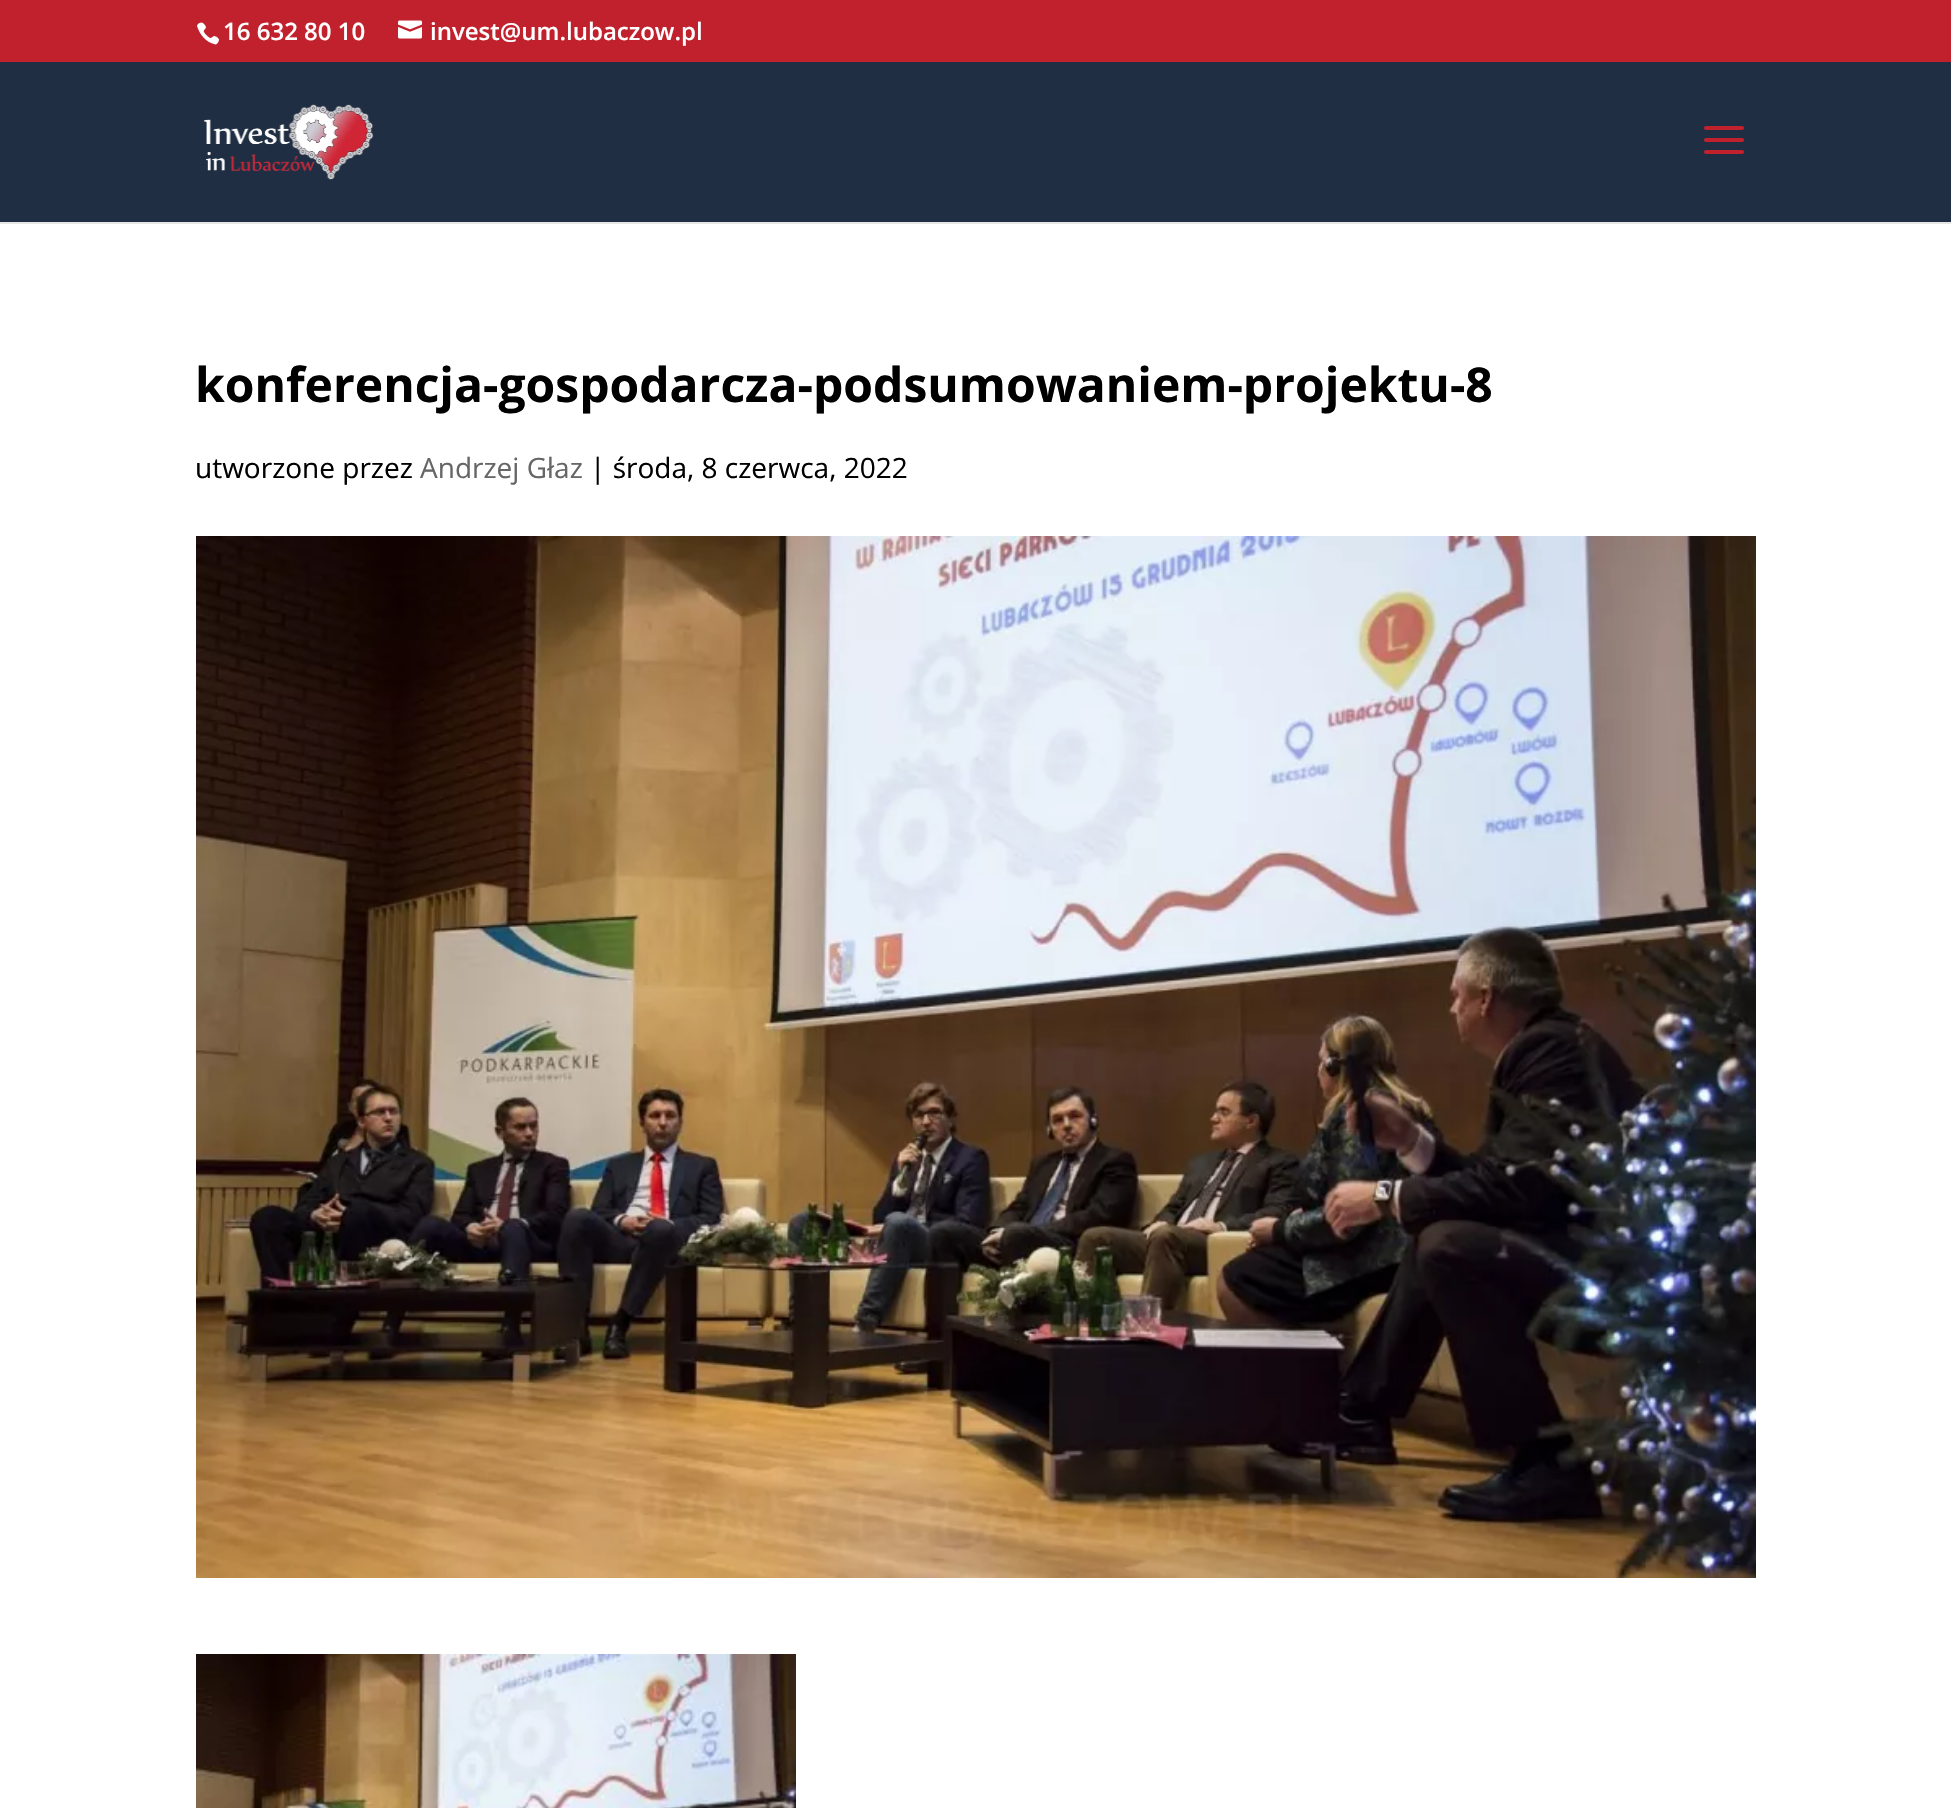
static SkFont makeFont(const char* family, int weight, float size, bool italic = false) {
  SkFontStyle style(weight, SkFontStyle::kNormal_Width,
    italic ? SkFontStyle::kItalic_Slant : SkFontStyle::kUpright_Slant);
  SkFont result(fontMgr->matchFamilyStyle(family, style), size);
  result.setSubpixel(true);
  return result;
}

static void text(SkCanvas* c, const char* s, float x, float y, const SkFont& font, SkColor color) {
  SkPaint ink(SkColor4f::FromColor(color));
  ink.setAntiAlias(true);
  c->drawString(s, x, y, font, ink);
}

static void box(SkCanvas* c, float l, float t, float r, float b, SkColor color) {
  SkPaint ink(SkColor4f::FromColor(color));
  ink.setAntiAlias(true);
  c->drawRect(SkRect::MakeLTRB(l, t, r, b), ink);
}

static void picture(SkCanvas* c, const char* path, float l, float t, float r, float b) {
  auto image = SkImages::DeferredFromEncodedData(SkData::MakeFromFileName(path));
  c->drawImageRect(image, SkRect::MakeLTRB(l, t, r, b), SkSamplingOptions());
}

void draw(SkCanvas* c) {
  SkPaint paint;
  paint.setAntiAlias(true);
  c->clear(0xffffffff);
  box(c, 0, 0, 1951, 62, 0xffc1212d);
  picture(c, "img_01.png", 197, 22, 219, 45);
  SkFont face1 = makeFont("Open Sans", 600, 24);
  text(c, "16 632 80 10", 223, 40, face1, 0xffffffff);
  picture(c, "img_02.png", 398, 20, 422, 39);
  text(c, "invest@um.lubaczow.pl", 430, 40, face1, 0xffffffff);
  box(c, 0, 222, 1951, 224, 0xffe6e6e6);
  box(c, 0, 62, 1951, 222, 0xff1f2e43);
  picture(c, "img_03.png", 204, 104, 374, 180);
  picture(c, "img_04.png", 1704, 126, 1744, 154);
  SkFont face2 = makeFont("Open Sans", 700, 48);
  text(c, "konferencja-gospodarcza-podsumowaniem-projektu-8", 195, 402, face2, 0xff000000);
  SkFont face3 = makeFont("Open Sans", 400, 28);
  text(c, "utworzone przez", 195, 478, face3, 0xff000000);
  text(c, "Andrzej Głaz", 420, 478, face3, 0xff666666);
  text(c, "| środa, 8 czerwca, 2022", 590, 478, face3, 0xff000000);
  picture(c, "img_05.png", 196, 536, 1756, 1578);
  picture(c, "img_06.png", 196, 1654, 796, 1808);
}
